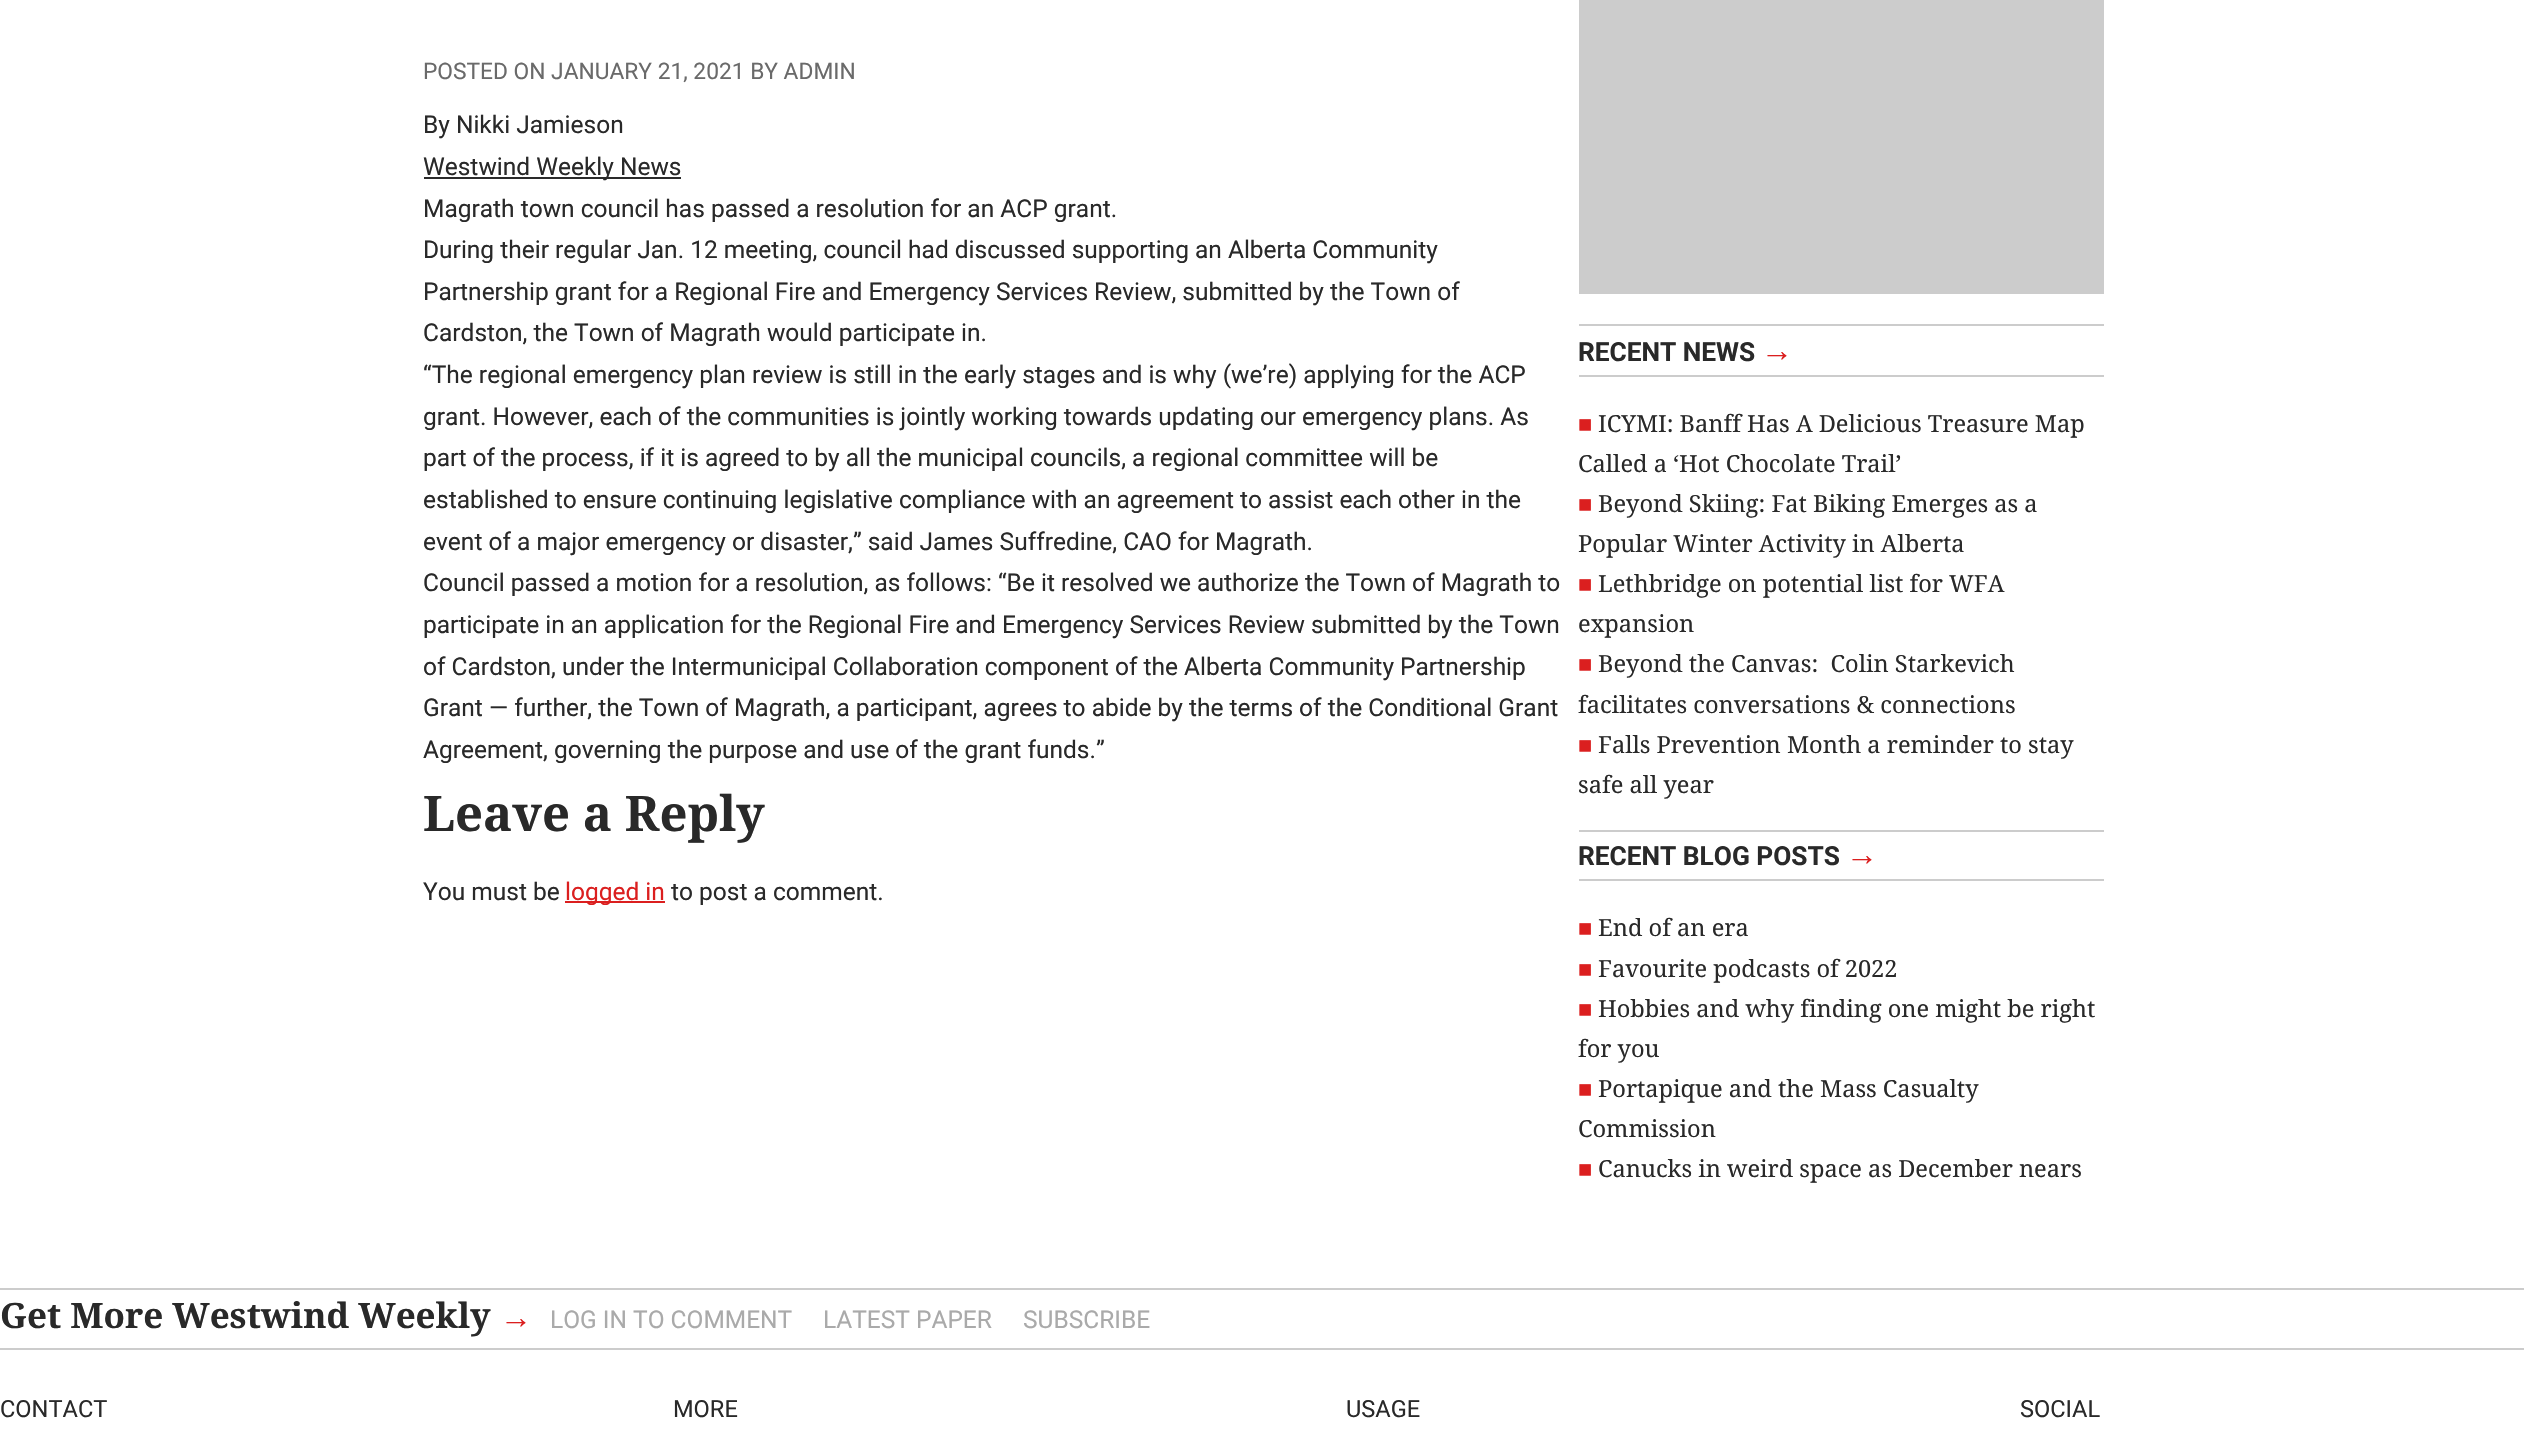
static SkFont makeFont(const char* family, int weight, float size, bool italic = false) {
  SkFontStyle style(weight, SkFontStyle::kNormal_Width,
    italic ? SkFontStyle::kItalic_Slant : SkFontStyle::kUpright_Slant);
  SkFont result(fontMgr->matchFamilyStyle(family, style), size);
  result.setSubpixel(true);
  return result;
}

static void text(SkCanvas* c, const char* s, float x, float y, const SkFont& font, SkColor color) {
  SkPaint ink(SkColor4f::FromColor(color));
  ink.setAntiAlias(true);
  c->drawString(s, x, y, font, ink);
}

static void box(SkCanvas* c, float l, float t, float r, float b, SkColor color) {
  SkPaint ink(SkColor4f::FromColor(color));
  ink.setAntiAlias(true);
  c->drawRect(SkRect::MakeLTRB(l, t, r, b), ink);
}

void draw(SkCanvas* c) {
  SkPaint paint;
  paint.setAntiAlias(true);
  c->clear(0xffffffff);
  SkFont face1 = makeFont("Roboto", 400, 22.75f);
  text(c, "POSTED ON JANUARY 21, 2021 BY ADMIN", 423, 79, face1, 0xff6a6a6a);
  SkFont face2 = makeFont("Roboto", 400, 24.5f);
  text(c, "By Nikki Jamieson", 423, 133, face2, 0xff292929);
  box(c, 424, 177, 681, 179, 0xff2a2a2a);
  text(c, "Westwind Weekly News", 423, 175, face2, 0xff292929);
  text(c, "Magrath town council has passed a resolution for an ACP grant.", 423, 217, face2, 0xff292929);
  text(c, "During their regular Jan. 12 meeting, council had discussed supporting an Alberta Community", 423, 258, face2, 0xff292929);
  text(c, "Partnership grant for a Regional Fire and Emergency Services Review, submitted by the Town of", 423, 300, face2, 0xff292929);
  text(c, "Cardston, the Town of Magrath would participate in.", 423, 341, face2, 0xff292929);
  text(c, "“The regional emergency plan review is still in the early stages and is why (we’re) applying for the ACP", 423, 383, face2, 0xff292929);
  text(c, "grant. However, each of the communities is jointly working towards updating our emergency plans. As", 423, 425, face2, 0xff292929);
  text(c, "part of the process, if it is agreed to by all the municipal councils, a regional committee will be", 423, 466, face2, 0xff292929);
  text(c, "established to ensure continuing legislative compliance with an agreement to assist each other in the", 423, 508, face2, 0xff292929);
  text(c, "event of a major emergency or disaster,” said James Suffredine, CAO for Magrath.", 423, 550, face2, 0xff292929);
  text(c, "Council passed a motion for a resolution, as follows: “Be it resolved we authorize the Town of Magrath to", 423, 591, face2, 0xff292929);
  text(c, "participate in an application for the Regional Fire and Emergency Services Review submitted by the Town", 423, 633, face2, 0xff292929);
  text(c, "of Cardston, under the Intermunicipal Collaboration component of the Alberta Community Partnership", 423, 675, face2, 0xff292929);
  text(c, "Grant — further, the Town of Magrath, a participant, agrees to abide by the terms of the Conditional Grant", 423, 716, face2, 0xff292929);
  text(c, "Agreement, governing the purpose and use of the grant funds.”", 423, 758, face2, 0xff292929);
  SkFont face3 = makeFont("Droid Serif", 700, 49);
  text(c, "Leave a Reply", 423, 831, face3, 0xff292929);
  text(c, "You must be", 423, 900, face2, 0xff292929);
  box(c, 565, 901, 665, 903, 0xffdb1f1f);
  text(c, "logged in", 565, 900, face2, 0xffdb1f1f);
  text(c, "to post a comment.", 671, 900, face2, 0xff292929);
  box(c, 1579, 0, 2104, 294, 0xffcccccc);
  box(c, 1579, 324, 2104, 326, 0xffcccccc);
  box(c, 1579, 375, 2104, 377, 0xffcccccc);
  SkFont face4 = makeFont("Roboto", 700, 26.25f);
  text(c, "RECENT NEWS", 1578, 361, face4, 0xff292929);
  SkFont face5 = makeFont("Liberation Sans", 700, 32);
  text(c, "→", 1761, 361, face5, 0xffdb1f1f);
  SkFont face6 = makeFont("Liberation Serif", 400, 23.6f);
  text(c, "■", 1578, 432, face6, 0xffdb1f1f);
  SkFont face7 = makeFont("Droid Serif", 400, 23.6f);
  text(c, "ICYMI: Banff Has A Delicious Treasure Map", 1598, 432, face7, 0xff292929);
  text(c, "Called a ‘Hot Chocolate Trail’", 1578, 472, face7, 0xff292929);
  text(c, "■", 1578, 512, face6, 0xffdb1f1f);
  text(c, "Beyond Skiing: Fat Biking Emerges as a", 1598, 512, face7, 0xff292929);
  text(c, "Popular Winter Activity in Alberta", 1578, 552, face7, 0xff292929);
  text(c, "■", 1578, 592, face6, 0xffdb1f1f);
  text(c, "Lethbridge on potential list for WFA", 1598, 592, face7, 0xff292929);
  text(c, "expansion", 1578, 632, face7, 0xff292929);
  text(c, "■", 1578, 672, face6, 0xffdb1f1f);
  text(c, "Beyond the Canvas:  Colin Starkevich", 1598, 672, face7, 0xff292929);
  text(c, "facilitates conversations & connections", 1578, 713, face7, 0xff292929);
  text(c, "■", 1578, 753, face6, 0xffdb1f1f);
  text(c, "Falls Prevention Month a reminder to stay", 1598, 753, face7, 0xff292929);
  text(c, "safe all year", 1578, 793, face7, 0xff292929);
  box(c, 1579, 830, 2104, 832, 0xffcccccc);
  box(c, 1579, 879, 2104, 881, 0xffcccccc);
  text(c, "RECENT BLOG POSTS", 1578, 865, face4, 0xff292929);
  text(c, "→", 1846, 865, face5, 0xffdb1f1f);
  text(c, "■", 1578, 936, face6, 0xffdb1f1f);
  text(c, "End of an era", 1598, 936, face7, 0xff292929);
  text(c, "■", 1578, 977, face6, 0xffdb1f1f);
  text(c, "Favourite podcasts of 2022", 1598, 977, face7, 0xff292929);
  text(c, "■", 1578, 1017, face6, 0xffdb1f1f);
  text(c, "Hobbies and why finding one might be right", 1598, 1017, face7, 0xff292929);
  text(c, "for you", 1578, 1057, face7, 0xff292929);
  text(c, "■", 1578, 1097, face6, 0xffdb1f1f);
  text(c, "Portapique and the Mass Casualty", 1598, 1097, face7, 0xff292929);
  text(c, "Commission", 1578, 1137, face7, 0xff292929);
  text(c, "■", 1578, 1177, face6, 0xffdb1f1f);
  text(c, "Canucks in weird space as December nears", 1598, 1177, face7, 0xff292929);
  box(c, 0, 1288, 2524, 1290, 0xffcccccc);
  box(c, 0, 1348, 2524, 1350, 0xffcccccc);
  SkFont face8 = makeFont("Droid Serif", 700, 35);
  text(c, "Get More Westwind Weekly", 0, 1328, face8, 0xff292929);
  SkFont face9 = makeFont("Liberation Serif", 700, 32);
  text(c, "→", 500, 1328, face9, 0xffdb1f1f);
  text(c, "LOG IN TO COMMENT", 550, 1328, face2, 0xffaaaaaa);
  text(c, "LATEST PAPER", 823, 1328, face2, 0xffaaaaaa);
  text(c, "SUBSCRIBE", 1023, 1328, face2, 0xffaaaaaa);
  SkFont face10 = makeFont("Roboto", 400, 23.6f);
  text(c, "CONTACT", 0, 1417, face10, 0xff292929);
  text(c, "MORE", 673, 1417, face10, 0xff292929);
  text(c, "USAGE", 1346, 1417, face10, 0xff292929);
  text(c, "SOCIAL", 2020, 1417, face10, 0xff292929);
}
